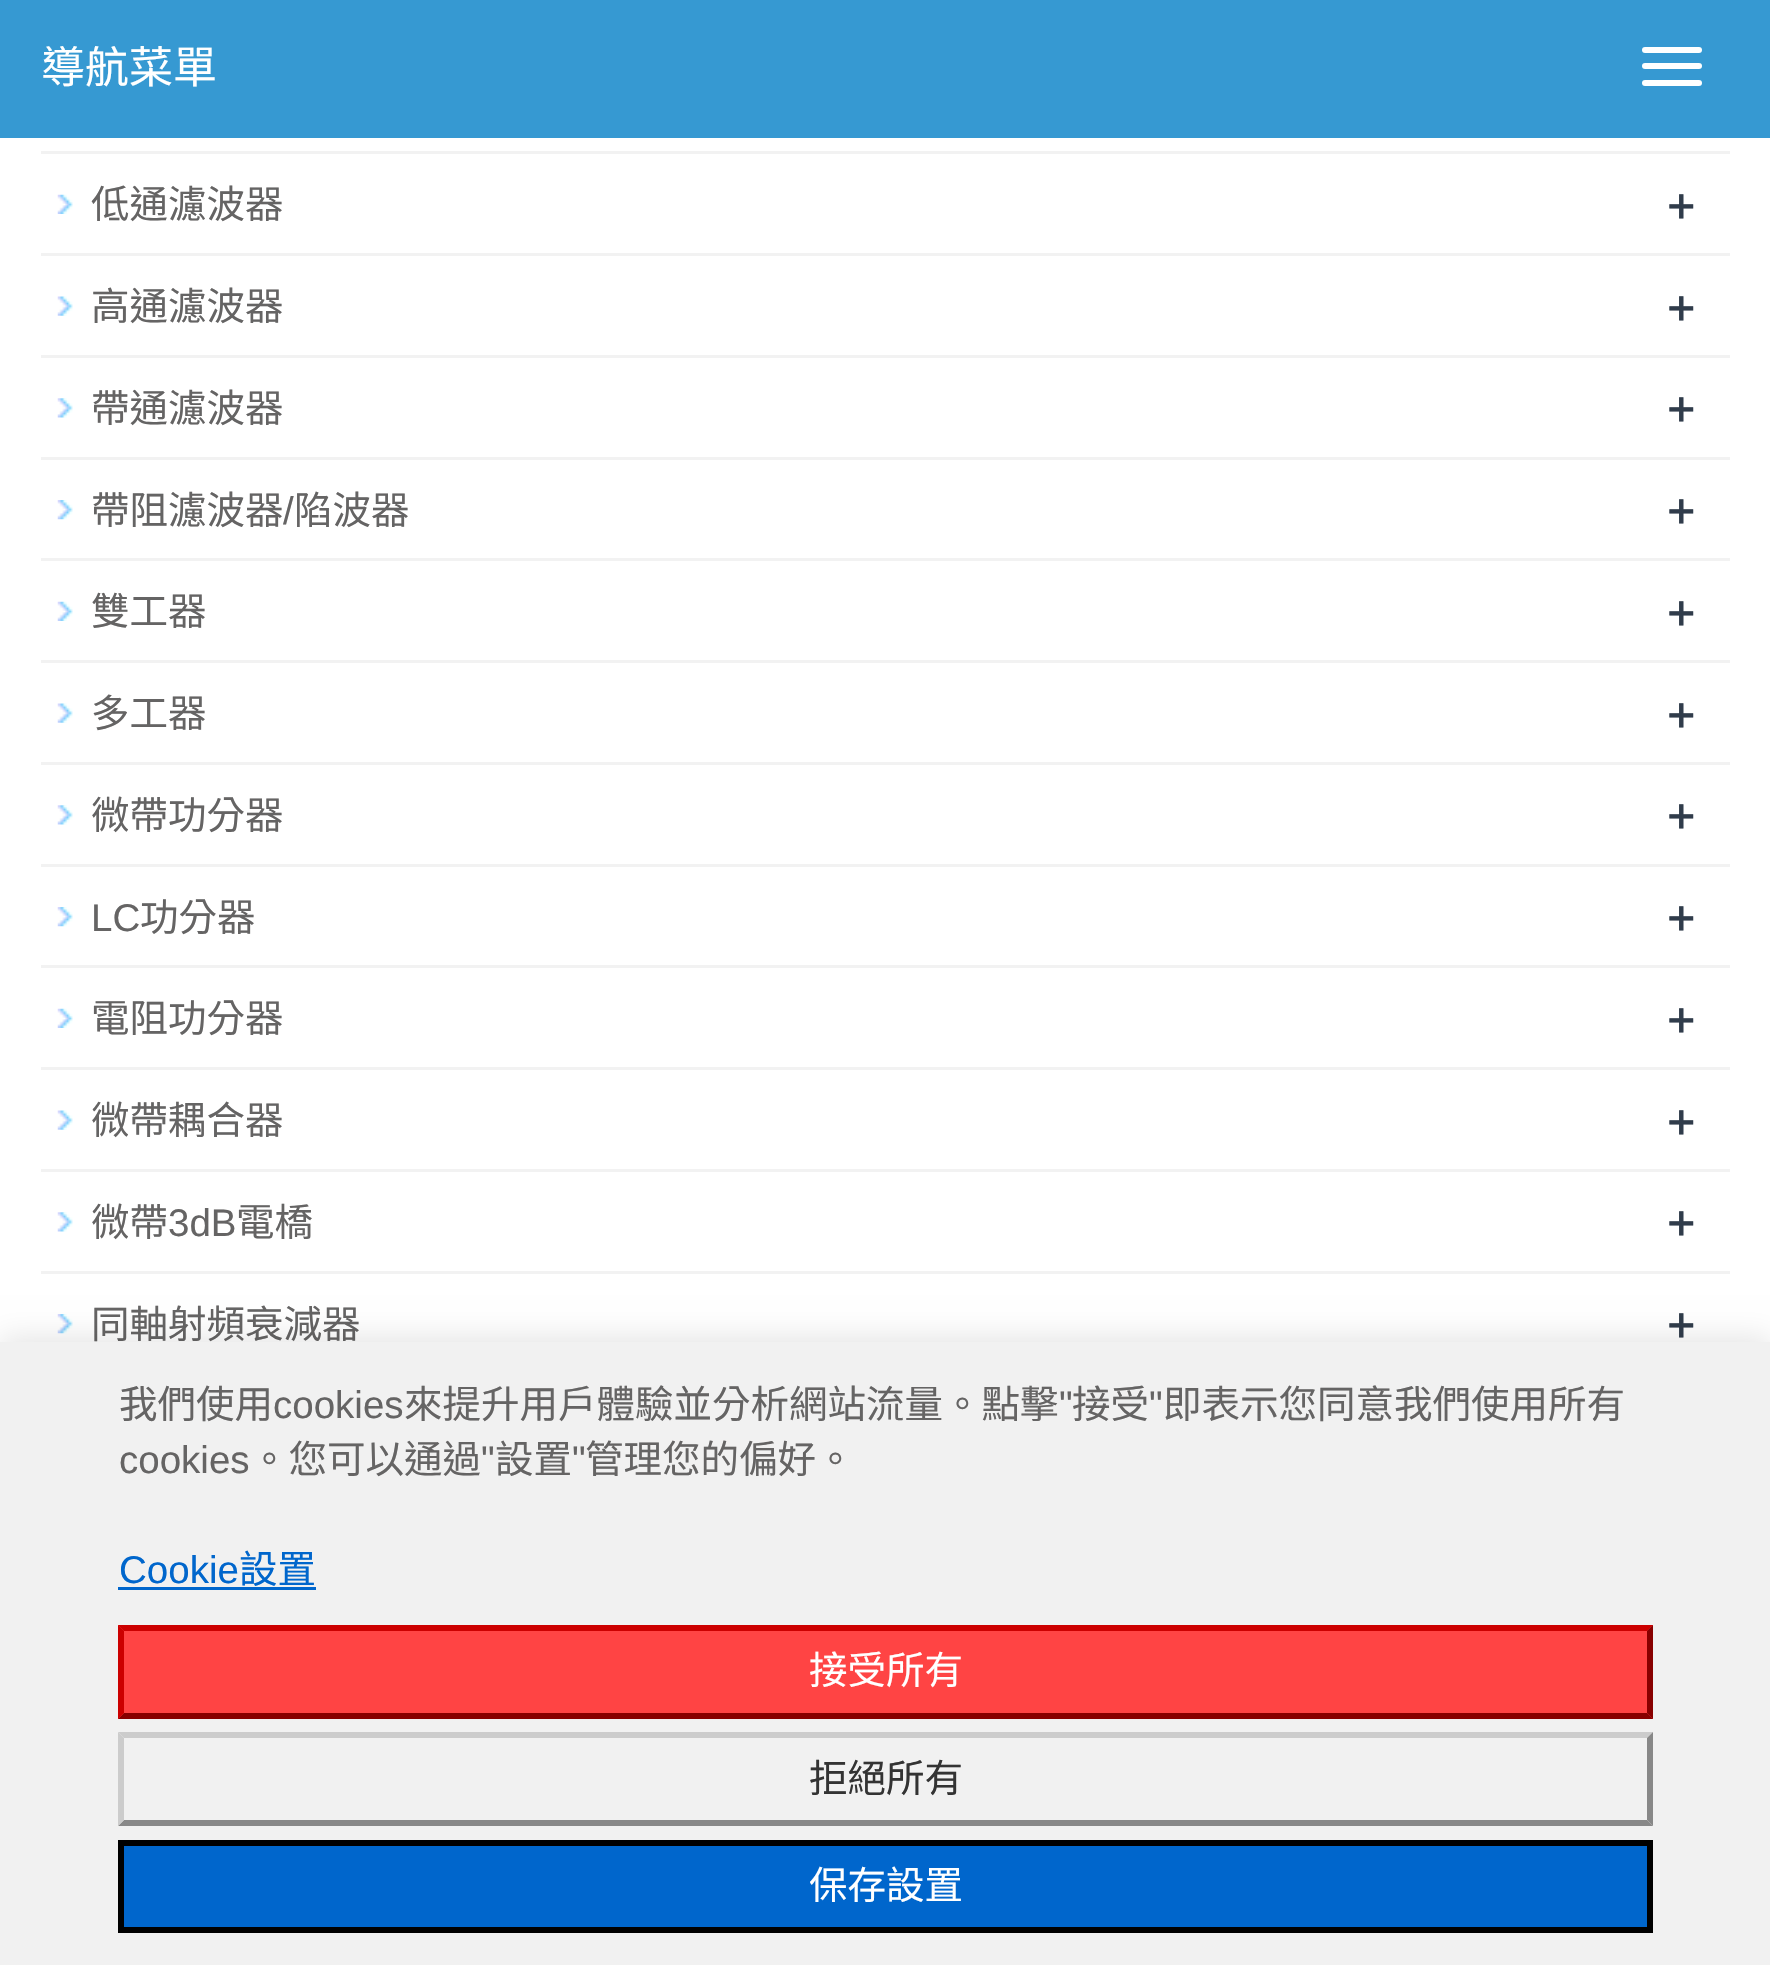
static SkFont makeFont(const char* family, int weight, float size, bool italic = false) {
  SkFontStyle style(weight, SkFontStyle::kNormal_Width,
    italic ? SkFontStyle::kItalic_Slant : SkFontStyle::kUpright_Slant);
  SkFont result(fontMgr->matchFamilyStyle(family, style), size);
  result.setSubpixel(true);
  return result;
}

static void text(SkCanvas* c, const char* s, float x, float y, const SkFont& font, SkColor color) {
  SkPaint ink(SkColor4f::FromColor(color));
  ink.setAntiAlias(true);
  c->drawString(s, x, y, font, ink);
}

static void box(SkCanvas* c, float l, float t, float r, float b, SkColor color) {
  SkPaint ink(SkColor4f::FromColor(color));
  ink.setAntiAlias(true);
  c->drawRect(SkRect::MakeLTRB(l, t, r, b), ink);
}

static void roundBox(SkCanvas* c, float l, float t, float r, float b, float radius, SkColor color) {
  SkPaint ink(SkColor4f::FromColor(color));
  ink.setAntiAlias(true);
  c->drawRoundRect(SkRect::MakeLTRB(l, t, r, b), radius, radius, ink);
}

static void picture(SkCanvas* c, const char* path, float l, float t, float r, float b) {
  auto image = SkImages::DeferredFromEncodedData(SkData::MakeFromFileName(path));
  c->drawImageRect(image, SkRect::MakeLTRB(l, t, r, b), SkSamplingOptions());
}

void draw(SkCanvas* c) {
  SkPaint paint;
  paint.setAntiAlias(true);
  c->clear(0xffffffff);
  box(c, 0, 0, 1770, 138, 0xff3699d2);
  SkFont face1 = makeFont("Noto Sans CJK TC", 400, 44);
  text(c, "導航菜單", 41, 83, face1, 0xffffffff);
  roundBox(c, 1642, 47, 1702, 53, 3, 0xffffffff);
  roundBox(c, 1642, 63, 1702, 69, 3, 0xffffffff);
  roundBox(c, 1642, 80, 1702, 86, 3, 0xffffffff);
  box(c, 41, 151, 1730, 154, 0xfff2f2f2);
  picture(c, "img_01.png", 57, 194, 73, 214);
  box(c, 41, 253, 1730, 256, 0xfff2f2f2);
  SkFont face2 = makeFont("Noto Sans CJK TC", 400, 38.5f);
  text(c, "低通濾波器", 91, 218, face2, 0xff656464);
  SkFont face3 = makeFont("Open Sans", 600, 50);
  text(c, "+", 1667, 224, face3, 0xff303c4b);
  picture(c, "img_02.png", 57, 296, 73, 316);
  box(c, 41, 355, 1730, 358, 0xfff2f2f2);
  text(c, "高通濾波器", 91, 320, face2, 0xff656464);
  text(c, "+", 1667, 326, face3, 0xff303c4b);
  picture(c, "img_03.png", 57, 398, 73, 418);
  box(c, 41, 457, 1730, 460, 0xfff2f2f2);
  text(c, "帶通濾波器", 91, 422, face2, 0xff656464);
  text(c, "+", 1667, 427, face3, 0xff303c4b);
  picture(c, "img_04.png", 57, 500, 73, 520);
  box(c, 41, 558, 1730, 561, 0xfff2f2f2);
  text(c, "帶阻濾波器", 91, 524, face2, 0xff656464);
  SkFont face4 = makeFont("Liberation Sans", 400, 38.5f);
  text(c, "/", 283, 524, face4, 0xff656464);
  text(c, "陷波器", 294, 524, face2, 0xff656464);
  text(c, "+", 1667, 529, face3, 0xff303c4b);
  picture(c, "img_01.png", 57, 601, 73, 621);
  box(c, 41, 660, 1730, 663, 0xfff2f2f2);
  text(c, "雙工器", 91, 625, face2, 0xff656464);
  text(c, "+", 1667, 631, face3, 0xff303c4b);
  picture(c, "img_02.png", 57, 703, 73, 723);
  box(c, 41, 762, 1730, 765, 0xfff2f2f2);
  text(c, "多工器", 91, 727, face2, 0xff656464);
  text(c, "+", 1667, 733, face3, 0xff303c4b);
  picture(c, "img_03.png", 57, 805, 73, 825);
  box(c, 41, 864, 1730, 867, 0xfff2f2f2);
  text(c, "微帶功分器", 91, 829, face2, 0xff656464);
  text(c, "+", 1667, 834, face3, 0xff303c4b);
  picture(c, "img_04.png", 57, 907, 73, 927);
  box(c, 41, 965, 1730, 968, 0xfff2f2f2);
  text(c, "LC", 91, 931, face4, 0xff656464);
  text(c, "功分器", 140, 931, face2, 0xff656464);
  text(c, "+", 1667, 936, face3, 0xff303c4b);
  picture(c, "img_01.png", 57, 1008, 73, 1028);
  box(c, 41, 1067, 1730, 1070, 0xfff2f2f2);
  text(c, "電阻功分器", 91, 1032, face2, 0xff656464);
  text(c, "+", 1667, 1038, face3, 0xff303c4b);
  picture(c, "img_02.png", 57, 1110, 73, 1130);
  box(c, 41, 1169, 1730, 1172, 0xfff2f2f2);
  text(c, "微帶耦合器", 91, 1134, face2, 0xff656464);
  text(c, "+", 1667, 1140, face3, 0xff303c4b);
  picture(c, "img_03.png", 57, 1212, 73, 1232);
  box(c, 41, 1271, 1730, 1274, 0xfff2f2f2);
  text(c, "微帶", 91, 1236, face2, 0xff656464);
  text(c, "3dB", 168, 1236, face4, 0xff656464);
  text(c, "電橋", 236, 1236, face2, 0xff656464);
  text(c, "+", 1667, 1241, face3, 0xff303c4b);
  picture(c, "img_04.png", 57, 1314, 73, 1334);
  text(c, "同軸射頻衰減器", 91, 1338, face2, 0xff656464);
  text(c, "+", 1667, 1343, face3, 0xff303c4b);
  paint.setColor(0x1a000000);
  paint.setMaskFilter(SkMaskFilter::MakeBlur(kNormal_SkBlurStyle, 14));
  c->drawRect(SkRect::MakeLTRB(0, 1337, 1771, 1961), paint);
  paint.setMaskFilter(nullptr);
  box(c, 0, 1342, 1770, 1965, 0xfff1f1f1);
  text(c, "我們使用", 119, 1418, face2, 0xff656464);
  text(c, "cookies", 273, 1418, face4, 0xff656464);
  text(c, "來提升用戶體驗並分析網站流量。點擊", 404, 1418, face2, 0xff656464);
  text(c, "\"", 1059, 1418, face4, 0xff656464);
  text(c, "接受", 1072, 1418, face2, 0xff656464);
  text(c, "\"", 1149, 1418, face4, 0xff656464);
  text(c, "即表示您同意我們使用所有", 1163, 1418, face2, 0xff656464);
  text(c, "cookies", 119, 1473, face4, 0xff656464);
  text(c, "。您可以通過", 250, 1473, face2, 0xff656464);
  text(c, "\"", 481, 1473, face4, 0xff656464);
  text(c, "設置", 495, 1473, face2, 0xff656464);
  text(c, "\"", 572, 1473, face4, 0xff656464);
  text(c, "管理您的偏好。", 585, 1473, face2, 0xff656464);
  text(c, "Cookie", 119, 1583, face4, 0xff0066cc);
  box(c, 118, 1587, 316, 1590, 0xff0066cc);
  text(c, "設置", 239, 1583, face2, 0xff0066cc);
  box(c, 118, 1625, 1653, 1719, 0xffff4444);
  paint.setColor(0xffcc0000);
  c->drawPath(SkPathBuilder().moveTo(118, 1625).lineTo(1653, 1625).lineTo(1647, 1631).lineTo(124, 1631).close().detach(), paint);
  paint.setColor(0xff880000);
  c->drawPath(SkPathBuilder().moveTo(1653, 1625).lineTo(1653, 1719).lineTo(1647, 1713).lineTo(1647, 1631).close().detach(), paint);
  c->drawPath(SkPathBuilder().moveTo(1653, 1719).lineTo(118, 1719).lineTo(124, 1713).lineTo(1647, 1713).close().detach(), paint);
  paint.setColor(0xffcc0000);
  c->drawPath(SkPathBuilder().moveTo(118, 1719).lineTo(118, 1625).lineTo(124, 1631).lineTo(124, 1713).close().detach(), paint);
  text(c, "接受所有", 809, 1684, face2, 0xffffffff);
  paint.setColor(0xffcccccc);
  c->drawPath(SkPathBuilder().moveTo(118, 1732).lineTo(1653, 1732).lineTo(1647, 1738).lineTo(124, 1738).close().detach(), paint);
  paint.setColor(0xff888888);
  c->drawPath(SkPathBuilder().moveTo(1653, 1732).lineTo(1653, 1826).lineTo(1647, 1820).lineTo(1647, 1738).close().detach(), paint);
  c->drawPath(SkPathBuilder().moveTo(1653, 1826).lineTo(118, 1826).lineTo(124, 1820).lineTo(1647, 1820).close().detach(), paint);
  paint.setColor(0xffcccccc);
  c->drawPath(SkPathBuilder().moveTo(118, 1826).lineTo(118, 1732).lineTo(124, 1738).lineTo(124, 1820).close().detach(), paint);
  text(c, "拒絕所有", 809, 1792, face2, 0xff333333);
  paint.setColor(0xff0066cc);
  c->drawRect(SkRect::MakeLTRB(121, 1843, 1650, 1930), paint);
  paint.setStyle(SkPaint::kStroke_Style);
  paint.setStrokeWidth(6);
  paint.setColor(0xff000000);
  c->drawRect(SkRect::MakeLTRB(121, 1843, 1650, 1930), paint);
  text(c, "保存設置", 809, 1899, face2, 0xffffffff);
}
